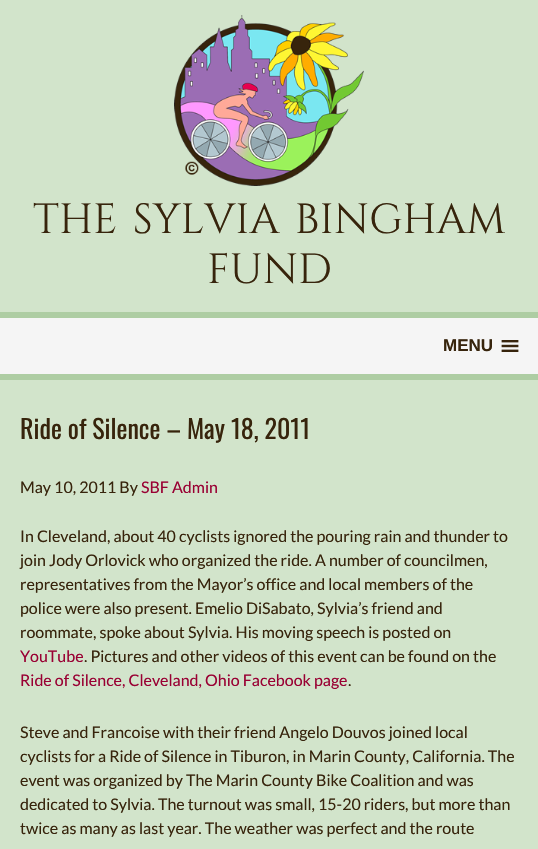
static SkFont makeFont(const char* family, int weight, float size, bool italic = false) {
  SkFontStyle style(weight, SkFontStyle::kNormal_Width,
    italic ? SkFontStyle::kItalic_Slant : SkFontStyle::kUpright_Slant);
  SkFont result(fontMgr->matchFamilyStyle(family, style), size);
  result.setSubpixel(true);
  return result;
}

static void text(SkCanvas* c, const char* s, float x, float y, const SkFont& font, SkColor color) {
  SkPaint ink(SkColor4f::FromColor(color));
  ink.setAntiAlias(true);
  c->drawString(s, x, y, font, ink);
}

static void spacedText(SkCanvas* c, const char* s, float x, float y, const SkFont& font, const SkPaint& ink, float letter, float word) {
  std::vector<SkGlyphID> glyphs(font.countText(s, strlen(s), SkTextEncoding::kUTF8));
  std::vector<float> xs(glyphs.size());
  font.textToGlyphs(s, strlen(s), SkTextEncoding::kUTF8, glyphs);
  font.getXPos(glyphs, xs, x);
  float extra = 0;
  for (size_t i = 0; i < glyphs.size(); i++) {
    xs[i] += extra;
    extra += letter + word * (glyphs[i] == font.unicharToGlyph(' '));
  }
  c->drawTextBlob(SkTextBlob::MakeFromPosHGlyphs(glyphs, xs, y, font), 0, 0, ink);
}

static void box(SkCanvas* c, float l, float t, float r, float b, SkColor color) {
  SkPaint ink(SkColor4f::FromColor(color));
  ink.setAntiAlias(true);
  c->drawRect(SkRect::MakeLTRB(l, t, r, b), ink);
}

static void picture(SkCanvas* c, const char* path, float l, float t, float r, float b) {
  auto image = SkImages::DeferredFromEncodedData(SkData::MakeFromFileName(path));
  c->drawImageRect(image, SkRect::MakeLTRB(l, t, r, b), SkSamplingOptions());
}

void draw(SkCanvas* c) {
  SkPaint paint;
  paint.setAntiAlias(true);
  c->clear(0xffd2e4cb);
  picture(c, "img_01.png", 174, 15, 364, 186);
  SkFont face1 = makeFont("Cinzel", 400, 42);
  paint.setColor(0xff37240c);
  spacedText(c, "THE SYLVIA BINGHAM", 33, 233, face1, paint, 0, 5);
  text(c, "FUND", 207, 283, face1, 0xff37240c);
  box(c, 0, 318, 538, 374, 0xfff5f5f5);
  box(c, 0, 312, 538, 318, 0xffaecda3);
  box(c, 0, 374, 538, 380, 0xffaecda3);
  SkFont face2 = makeFont("Liberation Sans", 700, 17);
  text(c, "MENU", 443, 351, face2, 0xff37240c);
  picture(c, "img_02.png", 501, 340, 519, 352);
  SkFont face3 = makeFont("Oswald", 400, 26);
  text(c, "Ride of Silence – May 18, 2011", 20, 439, face3, 0xff37240c);
  SkFont face4 = makeFont("Lato", 400, 16);
  text(c, "May 10, 2011 By", 20, 493, face4, 0xff37240c);
  text(c, "SBF Admin", 141, 493, face4, 0xff990033);
  text(c, "In Cleveland, about 40 cyclists ignored the pouring rain and thunder to", 20, 542, face4, 0xff37240c);
  text(c, "join Jody Orlovick who organized the ride. A number of councilmen,", 20, 566, face4, 0xff37240c);
  text(c, "representatives from the Mayor’s office and local members of the", 20, 590, face4, 0xff37240c);
  text(c, "police were also present. Emelio DiSabato, Sylvia’s friend and", 20, 614, face4, 0xff37240c);
  text(c, "roommate, spoke about Sylvia. His moving speech is posted on", 20, 638, face4, 0xff37240c);
  text(c, "YouTube", 20, 662, face4, 0xff990033);
  text(c, ". Pictures and other videos of this event can be found on the", 84, 662, face4, 0xff37240c);
  text(c, "Ride of Silence, Cleveland, Ohio Facebook page", 20, 686, face4, 0xff990033);
  text(c, ".", 348, 686, face4, 0xff37240c);
  text(c, "Steve and Francoise with their friend Angelo Douvos joined local", 20, 738, face4, 0xff37240c);
  text(c, "cyclists for a Ride of Silence in Tiburon, in Marin County, California. The", 20, 762, face4, 0xff37240c);
  text(c, "event was organized by The Marin County Bike Coalition and was", 20, 786, face4, 0xff37240c);
  text(c, "dedicated to Sylvia. The turnout was small, 15-20 riders, but more than", 20, 810, face4, 0xff37240c);
  text(c, "twice as many as last year. The weather was perfect and the route", 20, 834, face4, 0xff37240c);
}
